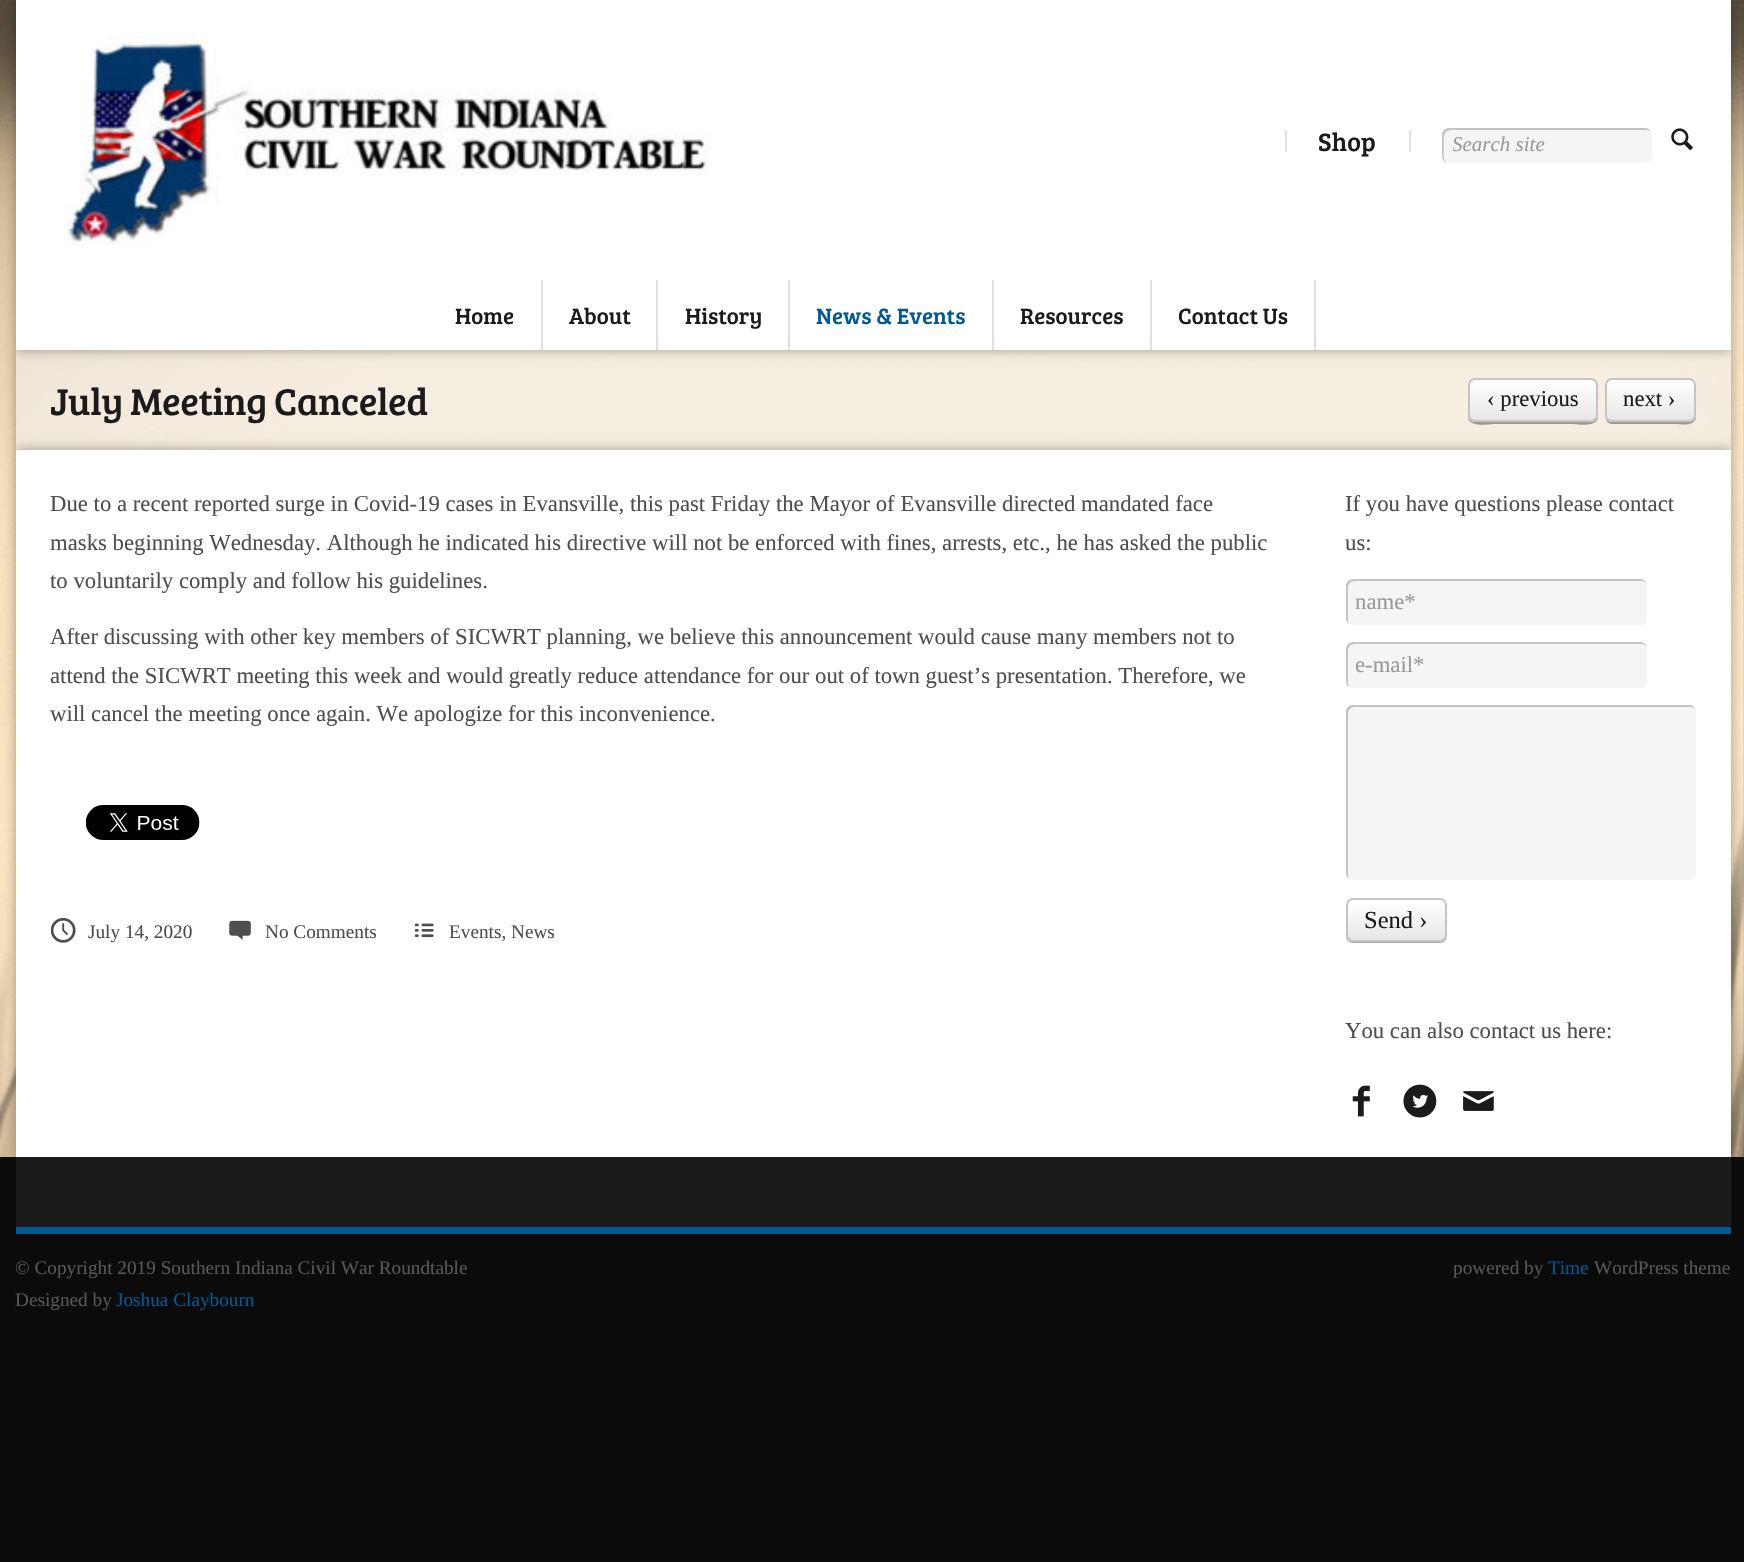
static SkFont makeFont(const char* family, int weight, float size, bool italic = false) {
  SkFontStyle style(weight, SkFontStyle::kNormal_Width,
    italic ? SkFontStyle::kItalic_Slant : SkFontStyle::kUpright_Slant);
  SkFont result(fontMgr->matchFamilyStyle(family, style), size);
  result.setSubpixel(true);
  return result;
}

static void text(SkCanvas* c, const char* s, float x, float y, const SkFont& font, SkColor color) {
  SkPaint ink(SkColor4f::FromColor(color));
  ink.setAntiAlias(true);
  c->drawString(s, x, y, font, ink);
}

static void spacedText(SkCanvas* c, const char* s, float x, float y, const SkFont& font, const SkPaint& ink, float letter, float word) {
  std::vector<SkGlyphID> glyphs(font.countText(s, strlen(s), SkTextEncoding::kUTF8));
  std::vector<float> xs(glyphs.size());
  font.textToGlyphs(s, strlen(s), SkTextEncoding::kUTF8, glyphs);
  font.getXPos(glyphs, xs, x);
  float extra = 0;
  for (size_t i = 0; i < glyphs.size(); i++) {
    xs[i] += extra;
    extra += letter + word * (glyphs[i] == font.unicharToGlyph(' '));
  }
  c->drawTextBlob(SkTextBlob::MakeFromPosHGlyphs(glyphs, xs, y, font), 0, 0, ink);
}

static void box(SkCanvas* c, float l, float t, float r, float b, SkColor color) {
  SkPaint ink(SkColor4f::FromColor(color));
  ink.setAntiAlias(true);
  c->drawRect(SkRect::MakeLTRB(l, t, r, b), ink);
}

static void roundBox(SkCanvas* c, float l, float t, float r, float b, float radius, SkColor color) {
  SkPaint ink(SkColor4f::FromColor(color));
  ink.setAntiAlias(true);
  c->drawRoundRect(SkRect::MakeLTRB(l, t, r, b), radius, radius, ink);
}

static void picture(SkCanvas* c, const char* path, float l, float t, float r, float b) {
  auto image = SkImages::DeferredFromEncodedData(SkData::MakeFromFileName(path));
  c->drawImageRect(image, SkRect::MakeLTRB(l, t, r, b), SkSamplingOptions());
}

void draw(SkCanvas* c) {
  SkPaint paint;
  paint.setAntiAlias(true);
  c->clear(0xff0b0b0b);
  picture(c, "img_01.png", 0, 0, 1744, 1157);
  c->save();
  c->clipPath(SkPathBuilder(SkPathFillType::kEvenOdd).moveTo(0, 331).lineTo(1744, 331).lineTo(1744, 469).lineTo(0, 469).close().moveTo(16, 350).lineTo(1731, 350).lineTo(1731, 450).lineTo(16, 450).close().detach(), true);
  paint.setColor(0x59000000);
  paint.setMaskFilter(SkMaskFilter::MakeBlur(kNormal_SkBlurStyle, 6));
  c->drawRect(SkRect::MakeLTRB(16, 350, 1731, 450), paint);
  paint.setMaskFilter(nullptr);
  c->restore();
  box(c, 16, 350, 1731, 450, 0x99f0f0f0);
  paint.setMaskFilter(SkMaskFilter::MakeBlur(kNormal_SkBlurStyle, 6));
  c->drawRect(SkRect::MakeLTRB(16, 0, 1731, 350), paint);
  paint.setMaskFilter(nullptr);
  box(c, 16, 0, 1731, 350, 0xffffffff);
  picture(c, "img_02.png", 64, 35, 709, 245);
  box(c, 1285, 130, 1287, 152, 0xffe0e0e0);
  SkFont face1 = makeFont("Bree Serif", 400, 26);
  text(c, "Shop", 1318, 151, face1, 0xff1b1b1b);
  box(c, 1409, 130, 1411, 152, 0xffe0e0e0);
  roundBox(c, 1442, 128, 1652, 163, 7, 0xfff5f5f5);
  paint.setColor(0x33000000);
  c->drawPath(SkPathBuilder().moveTo(1451, 130).lineTo(1647, 130).lineTo(1651, 131).cubicTo(1649, 129, 1647, 128, 1645, 128).lineTo(1449, 128).cubicTo(1445, 128, 1442, 131, 1442, 135).lineTo(1442, 156).cubicTo(1442, 159, 1444, 162, 1447, 163).cubicTo(1442, 159, 1444, 152, 1444, 147).cubicTo(1444, 141, 1442, 130, 1451, 130).close().detach(), paint);
  c->save();
  c->clipRect(SkRect::MakeLTRB(1453, 131, 1642, 158));
  SkFont face2 = makeFont("Liberation Serif", 400, 21, true);
  text(c, "Search site", 1452, 151, face2, 0xff9a9a9a);
  c->restore();
  picture(c, "img_03.png", 1671, 128, 1693, 150);
  box(c, 541, 280, 543, 350, 0xffe0e0e0);
  SkFont face3 = makeFont("Bree Serif", 400, 22.75f);
  text(c, "Home", 455, 324, face3, 0xff1b1b1b);
  box(c, 656, 280, 658, 350, 0xffe0e0e0);
  text(c, "About", 569, 324, face3, 0xff1b1b1b);
  box(c, 788, 280, 790, 350, 0xffe0e0e0);
  text(c, "History", 685, 324, face3, 0xff1b1b1b);
  box(c, 992, 280, 994, 350, 0xffe0e0e0);
  text(c, "News & Events", 816, 324, face3, 0xff005995);
  box(c, 1150, 280, 1152, 350, 0xffe0e0e0);
  text(c, "Resources", 1020, 324, face3, 0xff1b1b1b);
  box(c, 1314, 280, 1316, 350, 0xffe0e0e0);
  text(c, "Contact Us", 1178, 324, face3, 0xff1b1b1b);
  SkFont face4 = makeFont("Bree Serif", 400, 38.5f);
  paint.setColor(0xff1b1b1b);
  spacedText(c, "July Meeting Canceled", 50, 415, face4, paint, -0.4f, 0);
  paint.setColor(0xffa09b92);
  c->drawPath(SkPathBuilder().moveTo(1468, 385).lineTo(1468, 418).cubicTo(1470, 428, 1491, 424, 1494, 424).lineTo(1572, 424).cubicTo(1575, 424, 1596, 428, 1598, 418).lineTo(1598, 385).lineTo(1598, 415).cubicTo(1598, 419, 1595, 422, 1591, 422).lineTo(1475, 422).cubicTo(1471, 422, 1468, 419, 1468, 415).close().detach(), paint);
  c->save();
  c->clipPath(SkPathBuilder().moveTo(1475, 378).lineTo(1591, 378).cubicTo(1595, 378, 1598, 381, 1598, 385).lineTo(1598, 415).cubicTo(1598, 419, 1595, 422, 1591, 422).lineTo(1475, 422).cubicTo(1471, 422, 1468, 419, 1468, 415).lineTo(1468, 385).cubicTo(1468, 381, 1471, 378, 1475, 378).close().detach(), true);
  {
    const SkColor colors[] = {0xffffffff, 0xffe7e7e7};
    const float stops[] = {0, 1};
    const SkPoint ends[] = {{1533, 380}, {1533, 420}};
    paint.setShader(SkGradientShader::MakeLinear(ends, colors, stops, 2, SkTileMode::kClamp));
    paint.setAlpha(255);
  }
  c->drawRect(SkRect::MakeLTRB(1468, 380, 1598, 420), paint);
  c->restore();
  paint.setStyle(SkPaint::kStroke_Style);
  paint.setStrokeWidth(2);
  paint.setShader(nullptr);
  paint.setColor(0xffc4c4c4);
  c->drawRoundRect(SkRect::MakeLTRB(1469, 379, 1597, 421), 6, 6, paint);
  SkFont face5 = makeFont("Liberation Serif", 400, 22.75f);
  text(c, "‹ previous", 1487, 406, face5, 0xff1b1b1b);
  paint.setStyle(SkPaint::kFill_Style);
  paint.setColor(0xffa09a92);
  c->drawPath(SkPathBuilder().moveTo(1605, 417).lineTo(1606, 420).cubicTo(1607, 422, 1609, 424, 1612, 424).lineTo(1676, 424).cubicTo(1681, 424, 1694, 427, 1696, 418).lineTo(1696, 385).lineTo(1696, 415).cubicTo(1696, 419, 1693, 422, 1689, 422).lineTo(1612, 422).cubicTo(1609, 422, 1606, 420, 1605, 417).close().detach(), paint);
  c->save();
  c->clipPath(SkPathBuilder().moveTo(1612, 378).lineTo(1689, 378).cubicTo(1693, 378, 1696, 381, 1696, 385).lineTo(1696, 415).cubicTo(1696, 419, 1693, 422, 1689, 422).lineTo(1612, 422).cubicTo(1608, 422, 1605, 419, 1605, 415).lineTo(1605, 385).cubicTo(1605, 381, 1608, 378, 1612, 378).close().detach(), true);
  {
    const SkColor colors[] = {0xffffffff, 0xffe7e7e7};
    const float stops[] = {0, 1};
    const SkPoint ends[] = {{1650, 380}, {1650, 420}};
    paint.setShader(SkGradientShader::MakeLinear(ends, colors, stops, 2, SkTileMode::kClamp));
    paint.setAlpha(255);
  }
  c->drawRect(SkRect::MakeLTRB(1605, 380, 1696, 420), paint);
  c->restore();
  paint.setStyle(SkPaint::kStroke_Style);
  paint.setShader(nullptr);
  paint.setColor(0xffc4c4c4);
  c->drawRoundRect(SkRect::MakeLTRB(1606, 379, 1695, 421), 6, 6, paint);
  text(c, "next ›", 1623, 406, face5, 0xff1b1b1b);
  paint.setStyle(SkPaint::kFill_Style);
  paint.setColor(0x59000000);
  paint.setMaskFilter(SkMaskFilter::MakeBlur(kNormal_SkBlurStyle, 6));
  c->drawRect(SkRect::MakeLTRB(16, 450, 1731, 1157), paint);
  paint.setMaskFilter(nullptr);
  box(c, 16, 450, 1731, 1157, 0xffffffff);
  text(c, "Due to a recent reported surge in Covid-19 cases in Evansville, this past Friday the Mayor of Evansville directed mandated face", 50, 511, face5, 0xff4e4e4e);
  text(c, "masks beginning Wednesday. Although he indicated his directive will not be enforced with fines, arrests, etc., he has asked the public", 50, 550, face5, 0xff4e4e4e);
  text(c, "to voluntarily comply and follow his guidelines.", 50, 588, face5, 0xff4e4e4e);
  text(c, "After discussing with other key members of SICWRT planning, we believe this announcement would cause many members not to", 50, 644, face5, 0xff4e4e4e);
  text(c, "attend the SICWRT meeting this week and would greatly reduce attendance for our out of town guest’s presentation. Therefore, we", 50, 683, face5, 0xff4e4e4e);
  text(c, "will cancel the meeting once again. We apologize for this inconvenience.", 50, 721, face5, 0xff4e4e4e);
  picture(c, "img_04.png", 85, 805, 200, 840);
  picture(c, "img_05.png", 51, 917, 76, 943);
  SkFont face6 = makeFont("Liberation Serif", 400, 19.25f);
  text(c, "July 14, 2020", 88, 938, face6, 0xff4e4e4e);
  picture(c, "img_06.png", 229, 920, 251, 940);
  text(c, "No Comments", 265, 938, face6, 0xff4e4e4e);
  picture(c, "img_07.png", 414, 923, 434, 938);
  text(c, "Events, News", 449, 938, face6, 0xff4e4e4e);
  text(c, "If you have questions please contact", 1345, 511, face5, 0xff4e4e4e);
  text(c, "us:", 1345, 550, face5, 0xff4e4e4e);
  roundBox(c, 1346, 579, 1647, 625, 7, 0xfff5f5f5);
  paint.setColor(0x33000000);
  c->drawPath(SkPathBuilder().moveTo(1354, 581).lineTo(1642, 581).cubicTo(1644, 581, 1645, 582, 1647, 584).cubicTo(1646, 581, 1643, 579, 1640, 579).lineTo(1353, 579).cubicTo(1349, 579, 1346, 582, 1346, 586).lineTo(1346, 618).cubicTo(1346, 621, 1348, 623, 1350, 624).cubicTo(1349, 623, 1348, 622, 1348, 620).lineTo(1348, 588).cubicTo(1348, 584, 1351, 581, 1354, 581).close().detach(), paint);
  text(c, "name*", 1355, 609, face5, 0xff9a9a9a);
  roundBox(c, 1346, 642, 1647, 688, 7, 0xfff5f5f5);
  c->drawPath(SkPathBuilder().moveTo(1354, 644).lineTo(1642, 644).cubicTo(1644, 644, 1645, 645, 1647, 647).cubicTo(1646, 644, 1643, 642, 1640, 642).lineTo(1353, 642).cubicTo(1349, 642, 1346, 645, 1346, 649).lineTo(1346, 681).cubicTo(1346, 684, 1347, 686, 1350, 687).cubicTo(1349, 686, 1348, 684, 1348, 682).lineTo(1348, 651).cubicTo(1348, 647, 1351, 644, 1354, 644).close().detach(), paint);
  text(c, "e-mail*", 1355, 672, face5, 0xff9a9a9a);
  roundBox(c, 1346, 705, 1696, 880, 7, 0xfff5f5f5);
  c->drawPath(SkPathBuilder().moveTo(1354, 707).lineTo(1691, 707).lineTo(1695, 709).cubicTo(1694, 707, 1692, 705, 1689, 705).lineTo(1353, 705).cubicTo(1349, 705, 1346, 708, 1346, 712).lineTo(1346, 873).cubicTo(1346, 875, 1347, 877, 1349, 879).lineTo(1348, 875).lineTo(1348, 714).cubicTo(1348, 710, 1351, 707, 1354, 707).close().detach(), paint);
  paint.setColor(0xffa6a6a6);
  c->drawPath(SkPathBuilder().moveTo(1346, 936).cubicTo(1346, 940, 1349, 943, 1353, 943).lineTo(1440, 943).cubicTo(1444, 943, 1447, 940, 1447, 936).cubicTo(1446, 939, 1443, 942, 1440, 942).lineTo(1353, 942).cubicTo(1350, 942, 1347, 939, 1346, 936).close().detach(), paint);
  c->save();
  c->clipPath(SkPathBuilder().moveTo(1353, 898).lineTo(1440, 898).cubicTo(1444, 898, 1447, 901, 1447, 905).lineTo(1447, 935).cubicTo(1447, 939, 1444, 942, 1440, 942).lineTo(1353, 942).cubicTo(1349, 942, 1346, 939, 1346, 935).lineTo(1346, 905).cubicTo(1346, 901, 1349, 898, 1353, 898).close().detach(), true);
  {
    const SkColor colors[] = {0xffffffff, 0xffe7e7e7};
    const float stops[] = {0, 1};
    const SkPoint ends[] = {{1397, 900}, {1397, 940}};
    paint.setShader(SkGradientShader::MakeLinear(ends, colors, stops, 2, SkTileMode::kClamp));
    paint.setAlpha(255);
  }
  c->drawRect(SkRect::MakeLTRB(1346, 900, 1447, 940), paint);
  c->restore();
  paint.setStyle(SkPaint::kStroke_Style);
  paint.setShader(nullptr);
  paint.setColor(0xffc4c4c4);
  c->drawRoundRect(SkRect::MakeLTRB(1347, 899, 1446, 941), 6, 6, paint);
  SkFont face7 = makeFont("Liberation Serif", 400, 24.5f);
  text(c, "Send ›", 1364, 928, face7, 0xff1b1b1b);
  text(c, "You can also contact us here:", 1345, 1038, face5, 0xff4e4e4e);
  picture(c, "img_08.png", 1352, 1085, 1370, 1117);
  picture(c, "img_09.png", 1403, 1084, 1437, 1118);
  picture(c, "img_10.png", 1463, 1091, 1494, 1111);
  box(c, 16, 1157, 1731, 1227, 0xff1b1b1b);
  box(c, 16, 1227, 1731, 1234, 0xff005995);
  c->save();
  c->clipRect(SkRect::MakeLTRB(16, 1234, 1731, 1332));
  text(c, "© Copyright 2019 Southern Indiana Civil War Roundtable", 15, 1274, face6, 0xff575757);
  c->restore();
  text(c, "Designed by", 15, 1306, face6, 0xff575757);
  text(c, "Joshua Claybourn", 116, 1306, face6, 0xff005995);
  text(c, "powered by", 1453, 1274, face6, 0xff575757);
  text(c, "Time", 1548, 1274, face6, 0xff005995);
  text(c, "WordPress theme", 1594, 1274, face6, 0xff575757);
}
